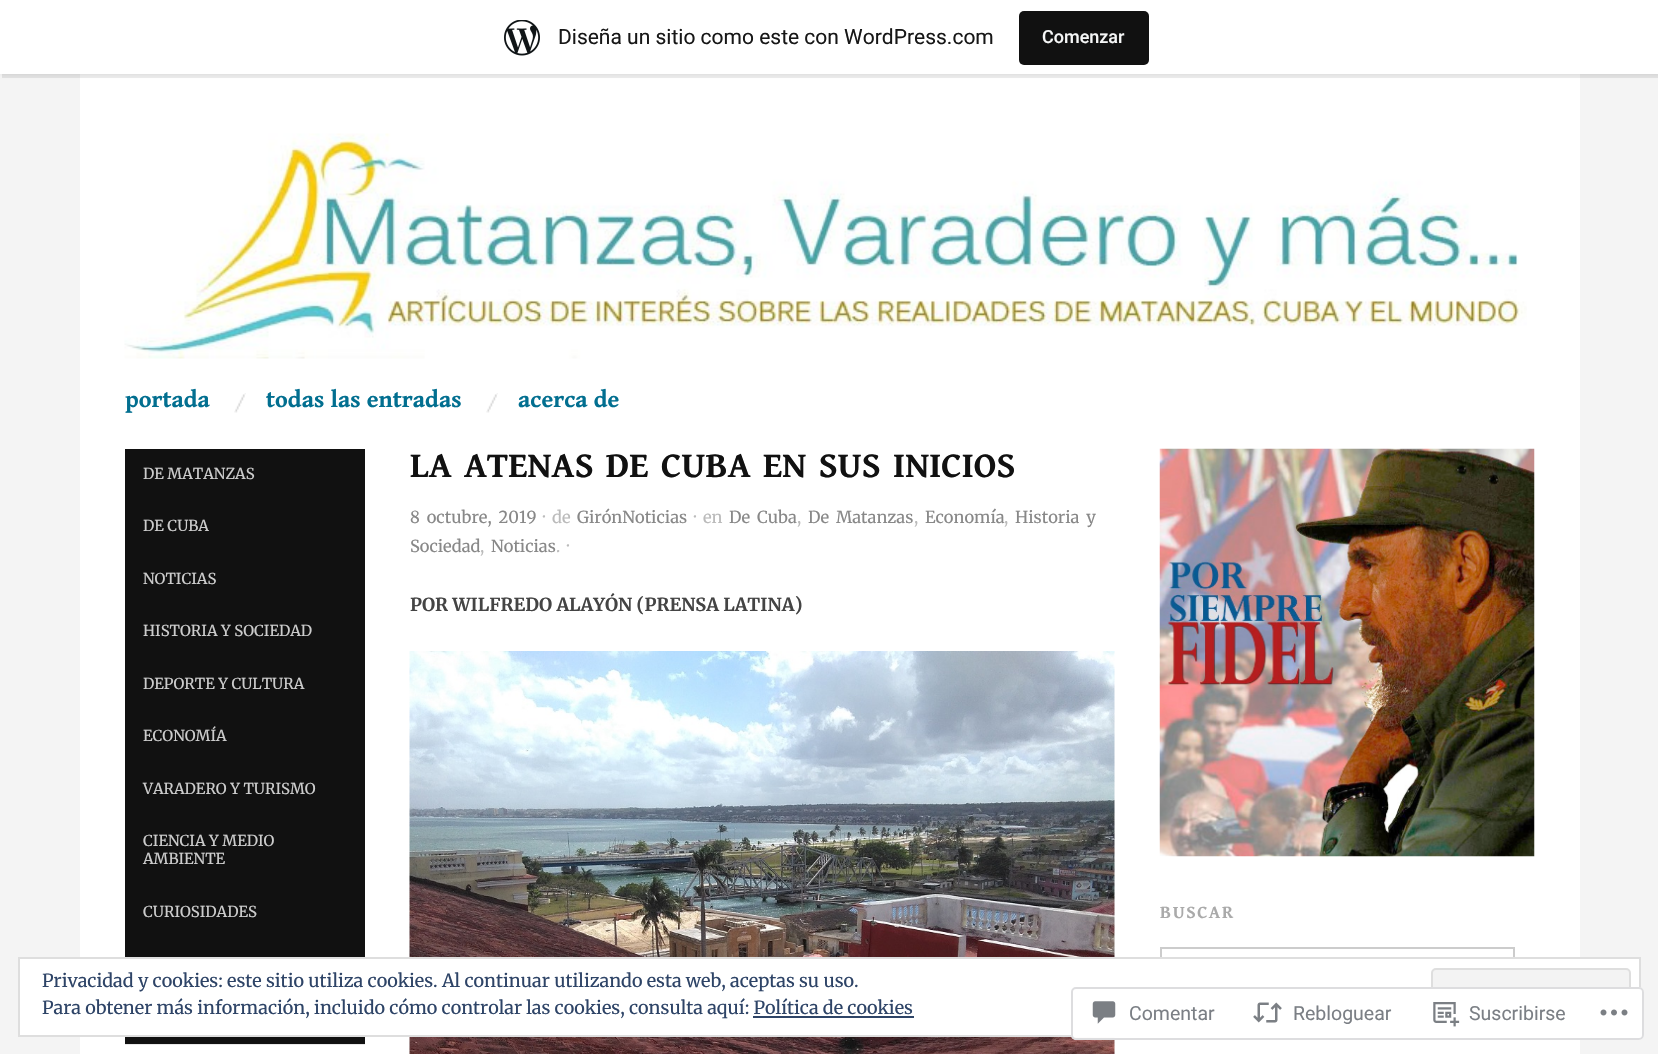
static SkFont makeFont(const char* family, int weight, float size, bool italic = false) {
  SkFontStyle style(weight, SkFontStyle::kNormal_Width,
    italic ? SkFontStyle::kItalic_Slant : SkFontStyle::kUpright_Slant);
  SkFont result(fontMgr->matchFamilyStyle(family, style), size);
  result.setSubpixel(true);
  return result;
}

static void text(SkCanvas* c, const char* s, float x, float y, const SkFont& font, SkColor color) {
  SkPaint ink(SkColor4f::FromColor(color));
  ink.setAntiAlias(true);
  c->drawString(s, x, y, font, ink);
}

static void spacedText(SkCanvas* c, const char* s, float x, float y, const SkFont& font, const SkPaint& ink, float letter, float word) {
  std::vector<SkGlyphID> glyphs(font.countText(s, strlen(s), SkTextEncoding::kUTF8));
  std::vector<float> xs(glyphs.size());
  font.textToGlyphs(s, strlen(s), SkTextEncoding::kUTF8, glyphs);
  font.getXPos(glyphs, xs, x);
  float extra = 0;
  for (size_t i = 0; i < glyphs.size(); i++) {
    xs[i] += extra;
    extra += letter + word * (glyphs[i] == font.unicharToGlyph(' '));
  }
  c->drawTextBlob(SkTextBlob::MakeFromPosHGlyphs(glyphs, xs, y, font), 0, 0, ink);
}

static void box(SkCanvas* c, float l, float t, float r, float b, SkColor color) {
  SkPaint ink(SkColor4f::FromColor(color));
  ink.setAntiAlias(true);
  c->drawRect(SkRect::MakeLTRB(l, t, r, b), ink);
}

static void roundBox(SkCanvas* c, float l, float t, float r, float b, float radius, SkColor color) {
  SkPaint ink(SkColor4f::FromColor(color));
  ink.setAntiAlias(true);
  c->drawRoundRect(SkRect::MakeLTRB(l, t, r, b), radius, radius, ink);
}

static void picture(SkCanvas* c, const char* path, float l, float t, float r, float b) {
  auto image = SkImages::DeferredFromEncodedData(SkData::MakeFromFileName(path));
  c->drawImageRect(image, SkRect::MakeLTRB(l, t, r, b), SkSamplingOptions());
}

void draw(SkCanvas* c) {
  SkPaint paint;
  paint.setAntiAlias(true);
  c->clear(0xfff4f4f4);
  box(c, 80, 74, 1580, 1054, 0xffffffff);
  paint.setColor(0x0d000000);
  paint.setMaskFilter(SkMaskFilter::MakeBlur(kNormal_SkBlurStyle, 1.5f));
  c->drawRect(SkRect::MakeLTRB(0, 2, 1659, 75), paint);
  paint.setMaskFilter(nullptr);
  paint.setColor(0x14000000);
  c->drawPath(SkPathBuilder().moveTo(2, 74).lineTo(2, 78).lineTo(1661, 78).lineTo(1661, 5).lineTo(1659, 5).lineTo(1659, 74).close().detach(), paint);
  box(c, 0, 0, 1658, 74, 0xffffffff);
  picture(c, "img_01.png", 504, 20, 540, 56);
  SkFont face1 = makeFont("Roboto", 400, 21);
  text(c, "Diseña un sitio como este con WordPress.com", 558, 44, face1, 0xff171717);
  roundBox(c, 1019, 11, 1149, 65, 5, 0xff111111);
  SkFont face2 = makeFont("Roboto", 500, 18);
  text(c, "Comenzar", 1042, 43, face2, 0xfff6f7f7);
  box(c, 125, 1044, 365, 1045, 0xffe9e9e9);
  picture(c, "img_02.png", 124, 133, 1527, 359);
  SkFont face3 = makeFont("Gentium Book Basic", 700, 24);
  text(c, "portada", 125, 407, face3, 0xff026f90);
  picture(c, "img_03.png", 234, 393, 246, 413);
  text(c, "todas las entradas", 266, 407, face3, 0xff026f90);
  picture(c, "img_04.png", 486, 393, 498, 413);
  text(c, "acerca de", 518, 407, face3, 0xff026f90);
  box(c, 125, 449, 365, 1043, 0xff111111);
  box(c, 125, 1043, 365, 1044, 0xff131313);
  SkFont face4 = makeFont("Merriweather", 400, 15);
  text(c, "DE MATANZAS", 143, 479, face4, 0xffcccccc);
  text(c, "DE CUBA", 143, 531, face4, 0xffcccccc);
  text(c, "NOTICIAS", 143, 584, face4, 0xffcccccc);
  text(c, "HISTORIA Y SOCIEDAD", 143, 636, face4, 0xffcccccc);
  text(c, "DEPORTE Y CULTURA", 143, 689, face4, 0xffcccccc);
  text(c, "ECONOMÍA", 143, 741, face4, 0xffcccccc);
  text(c, "VARADERO Y TURISMO", 143, 794, face4, 0xffcccccc);
  text(c, "CIENCIA Y MEDIO", 143, 846, face4, 0xffcccccc);
  text(c, "AMBIENTE", 143, 864, face4, 0xffcccccc);
  text(c, "CURIOSIDADES", 143, 917, face4, 0xffcccccc);
  SkFont face5 = makeFont("Gentium Book Basic", 700, 36);
  paint.setColor(0xff111111);
  spacedText(c, "LA ATENAS DE CUBA EN SUS INICIOS", 410, 477, face5, paint, 0, 3);
  SkFont face6 = makeFont("Merriweather", 400, 16.5f);
  paint.setColor(0xff888888);
  spacedText(c, "8 octubre, 2019", 410, 523, face6, paint, 0, 3);
  text(c, "·", 543, 523, face6, 0xffbbbbbb);
  text(c, "de", 552, 523, face6, 0xffbbbbbb);
  text(c, "GirónNoticias", 577, 523, face6, 0xff888888);
  text(c, "·", 694, 523, face6, 0xffbbbbbb);
  text(c, "en", 703, 523, face6, 0xffbbbbbb);
  spacedText(c, "De Cuba", 729, 523, face6, paint, 0, 3);
  spacedText(c, "De Matanzas", 808, 523, face6, paint, 0, 3);
  text(c, "Economía", 925, 523, face6, 0xff888888);
  spacedText(c, "Historia y", 1015, 523, face6, paint, 0, 3);
  text(c, ",", 797, 523, face6, 0xffbbbbbb);
  text(c, ",", 914, 523, face6, 0xffbbbbbb);
  text(c, ",", 1004, 523, face6, 0xffbbbbbb);
  text(c, "Sociedad", 410, 552, face6, 0xff888888);
  text(c, "Noticias", 491, 552, face6, 0xff888888);
  text(c, "·", 567, 552, face6, 0xffbbbbbb);
  text(c, ",", 480, 552, face6, 0xffbbbbbb);
  text(c, ".", 556, 552, face6, 0xffbbbbbb);
  SkFont face7 = makeFont("Merriweather", 700, 18);
  text(c, "POR WILFREDO ALAYÓN (PRENSA LATINA)", 410, 611, face7, 0xff444444);
  picture(c, "img_05.png", 409, 651, 1115, 1054);
  picture(c, "img_06.png", 1159, 448, 1535, 857);
  SkFont face8 = makeFont("Gentium Book Basic", 700, 18);
  paint.setColor(0xffaaaaaa);
  spacedText(c, "BUSCAR", 1160, 918, face8, paint, 1.5f, 0);
  paint.setStyle(SkPaint::kStroke_Style);
  paint.setStrokeWidth(2);
  paint.setColor(0xffcccccc);
  c->drawRect(SkRect::MakeLTRB(1161, 948, 1514, 986), paint);
  paint.setStyle(SkPaint::kFill_Style);
  paint.setColor(0xffffffff);
  c->drawRect(SkRect::MakeLTRB(19, 958, 1640, 1036), paint);
  paint.setStyle(SkPaint::kStroke_Style);
  paint.setColor(0xffdedede);
  c->drawRect(SkRect::MakeLTRB(19, 958, 1640, 1036), paint);
  SkFont face9 = makeFont("Merriweather", 400, 18);
  text(c, "Privacidad y cookies: este sitio utiliza cookies. Al continuar utilizando esta web, aceptas su uso.", 42, 987, face9, 0xff2e4467);
  paint.setStyle(SkPaint::kFill_Style);
  paint.setColor(0xfff3f3f3);
  c->drawRoundRect(SkRect::MakeLTRB(1432, 969, 1630, 1025), 4, 4, paint);
  paint.setStyle(SkPaint::kStroke_Style);
  paint.setColor(0xffdedede);
  c->drawRoundRect(SkRect::MakeLTRB(1432, 969, 1630, 1025), 4, 4, paint);
  text(c, "Para obtener más información, incluido cómo controlar las cookies, consulta aquí: Política de cookies", 42, 1014, face9, 0xff2e4467);
  box(c, 753, 1016, 914, 1018, 0xff2e4467);
  roundBox(c, 1071, 987, 1644, 1040, 5, 0xfaffffff);
  paint.setColor(0xfadcdcde);
  c->drawRoundRect(SkRect::MakeLTRB(1072, 988, 1643, 1039), 4, 4, paint);
  picture(c, "img_07.png", 1092, 1001, 1116, 1024);
  SkFont face10 = makeFont("Roboto", 400, 19.5f);
  text(c, "Comentar", 1129, 1020, face10, 0xff7b7f85);
  picture(c, "img_08.png", 1253, 1002, 1282, 1023);
  text(c, "Rebloguear", 1293, 1020, face10, 0xff7b7f85);
  picture(c, "img_09.png", 1433, 1002, 1460, 1027);
  text(c, "Suscribirse", 1469, 1020, face10, 0xff7b7f85);
  picture(c, "img_10.png", 1600, 1009, 1628, 1016);
}
